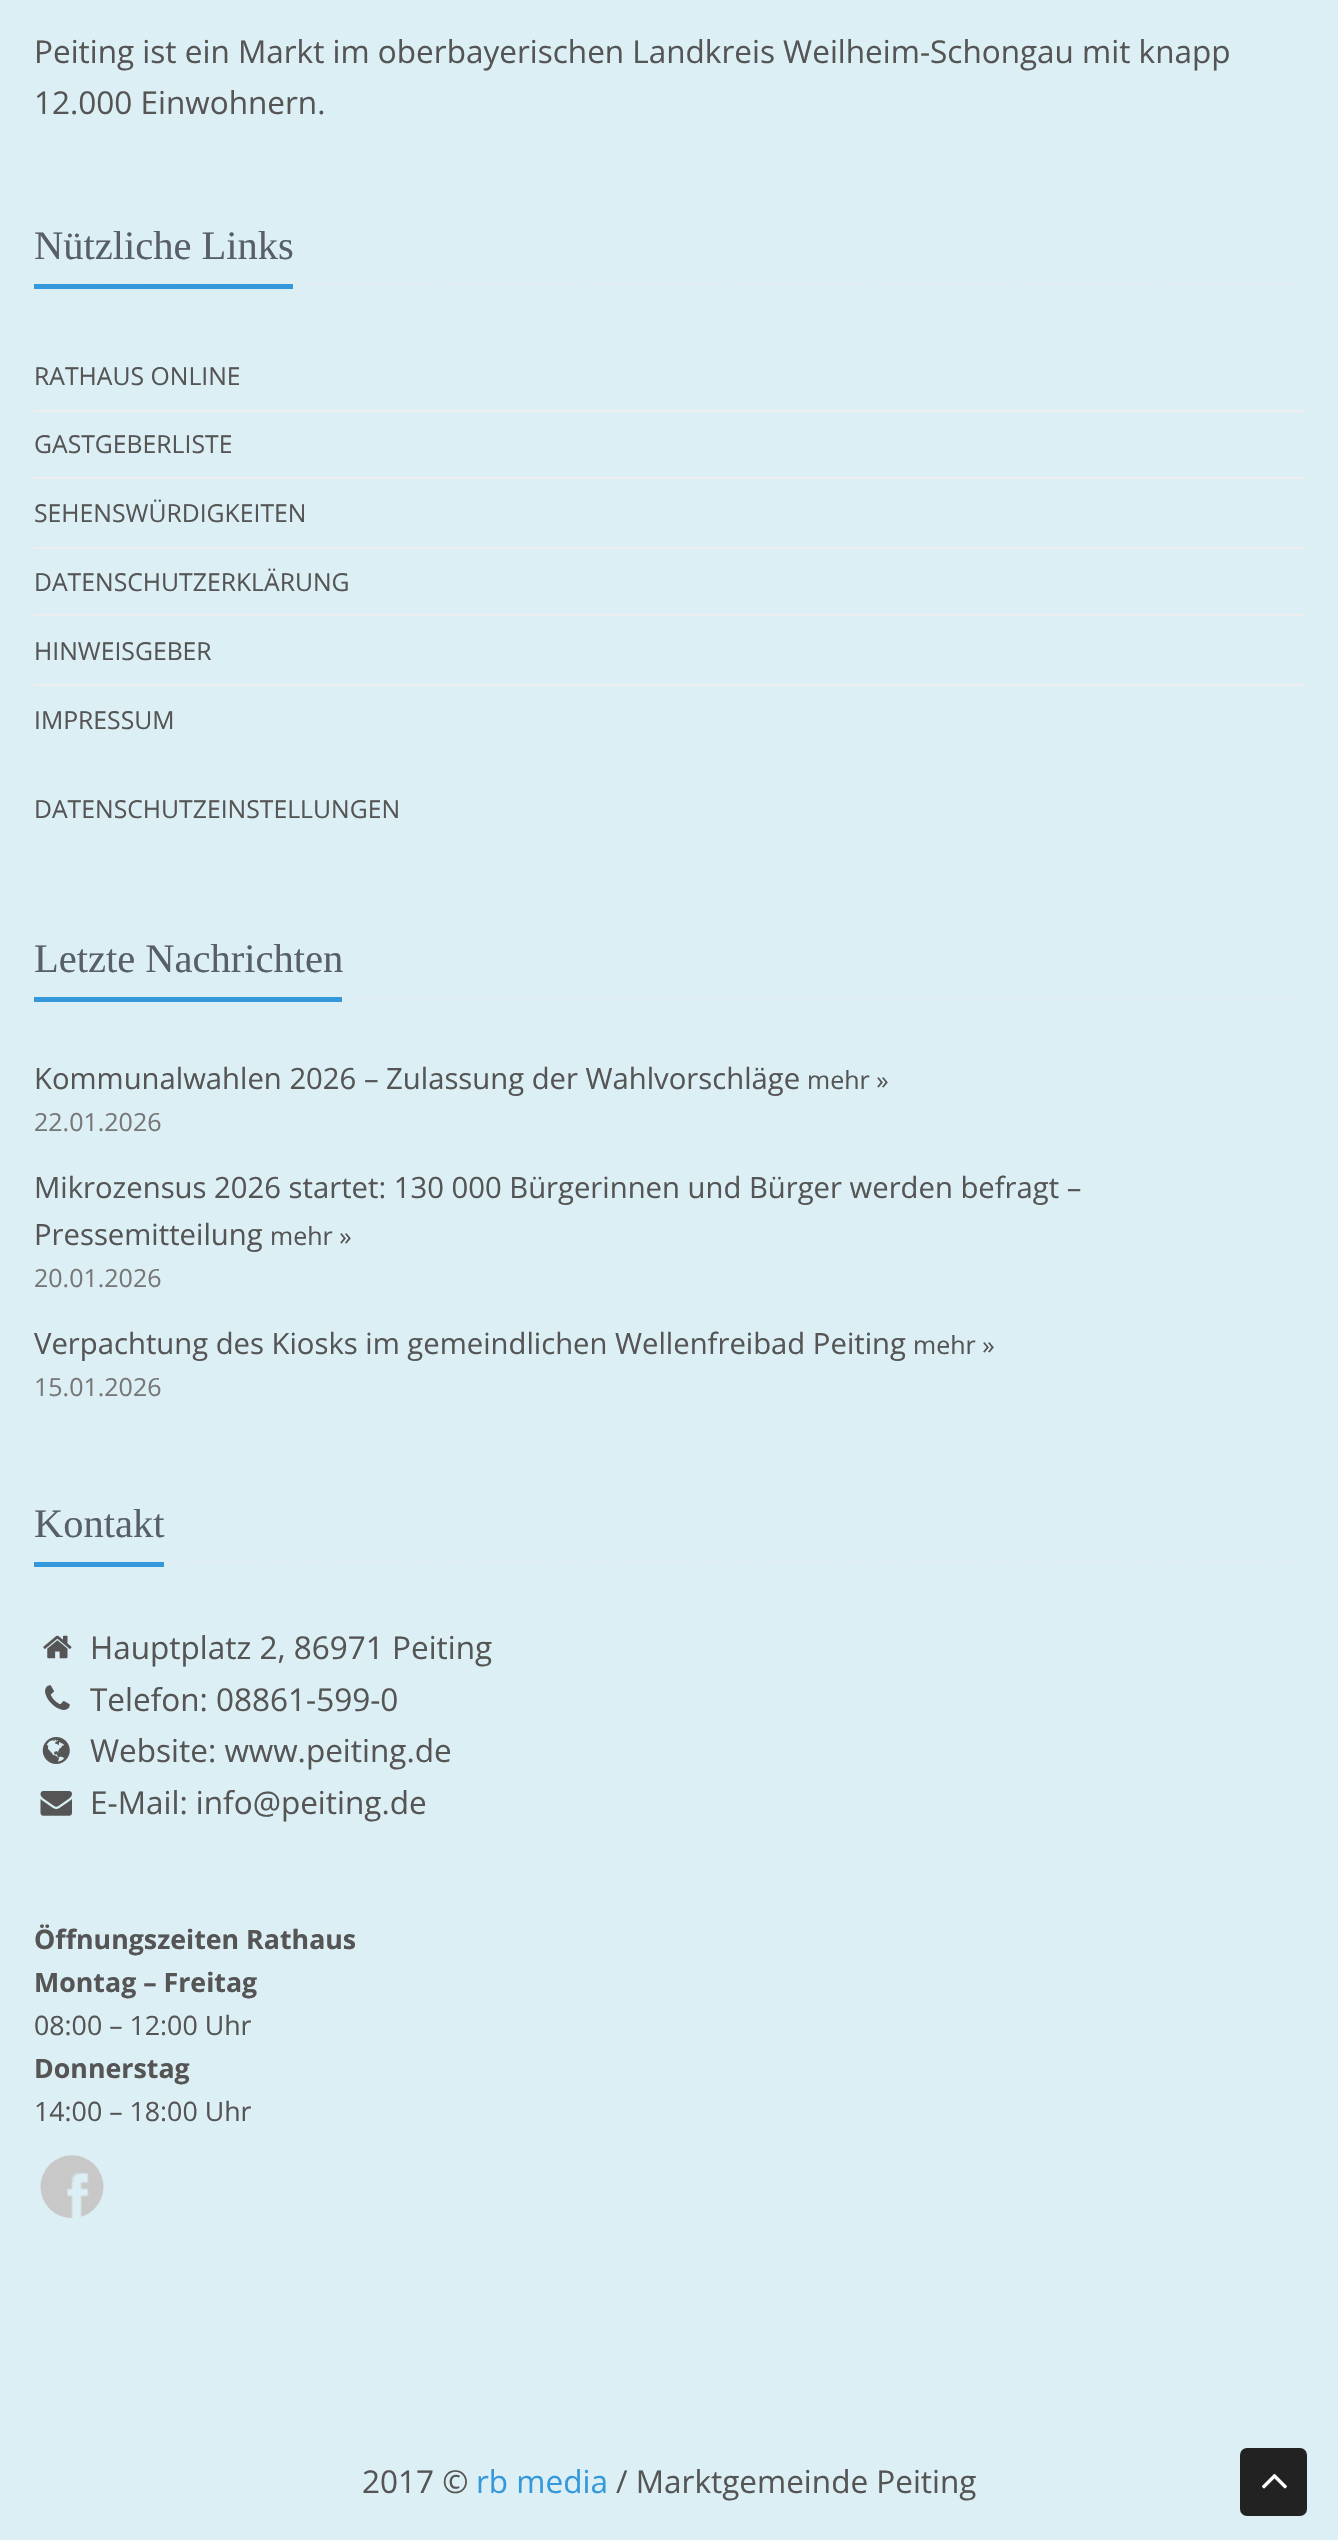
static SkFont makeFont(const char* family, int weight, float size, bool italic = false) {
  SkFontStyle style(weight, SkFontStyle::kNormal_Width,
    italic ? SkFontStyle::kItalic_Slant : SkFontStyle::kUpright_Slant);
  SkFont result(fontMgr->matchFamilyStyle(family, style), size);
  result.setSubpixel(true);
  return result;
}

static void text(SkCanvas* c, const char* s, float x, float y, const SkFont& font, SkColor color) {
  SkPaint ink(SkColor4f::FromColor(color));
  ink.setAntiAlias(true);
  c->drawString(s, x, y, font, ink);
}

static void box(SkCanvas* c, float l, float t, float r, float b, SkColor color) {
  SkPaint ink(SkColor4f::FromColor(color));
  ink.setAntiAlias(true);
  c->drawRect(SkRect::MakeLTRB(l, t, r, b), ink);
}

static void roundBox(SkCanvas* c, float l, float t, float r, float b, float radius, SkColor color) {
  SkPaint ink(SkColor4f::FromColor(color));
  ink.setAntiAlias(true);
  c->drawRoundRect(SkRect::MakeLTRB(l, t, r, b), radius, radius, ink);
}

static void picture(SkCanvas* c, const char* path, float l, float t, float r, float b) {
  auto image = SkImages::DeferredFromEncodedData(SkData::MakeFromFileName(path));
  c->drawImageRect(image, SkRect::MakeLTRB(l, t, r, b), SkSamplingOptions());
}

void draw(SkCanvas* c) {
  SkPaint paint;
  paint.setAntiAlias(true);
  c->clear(0xffdceff5);
  SkFont face1 = makeFont("Open Sans", 400, 31.5f);
  text(c, "Peiting ist ein Markt im oberbayerischen Landkreis Weilheim-Schongau mit knapp", 34, 63, face1, 0xff555555);
  text(c, "12.000 Einwohnern.", 34, 114, face1, 0xff555555);
  paint.setStyle(SkPaint::kStroke_Style);
  paint.setStrokeWidth(2.2f);
  paint.setColor(0xffe4e9f0);
  paint.setPathEffect(SkDashPathEffect::Make({{2.25f, 2.25f}}, 0));
  c->drawPath(SkPathBuilder().moveTo(34, 284.5f).lineTo(1305, 284.5f).detach(), paint);
  paint.setPathEffect(nullptr);
  box(c, 34, 284, 293, 289, 0xff3498db);
  SkFont face2 = makeFont("Liberation Serif", 400, 40.5f);
  text(c, "Nützliche Links", 34, 259, face2, 0xff585f69);
  SkFont face3 = makeFont("Open Sans", 400, 24.75f);
  text(c, "RATHAUS ONLINE", 34, 385, face3, 0xff555555);
  box(c, 34, 410, 1305, 412, 0xffeeeeee);
  text(c, "GASTGEBERLISTE", 34, 453, face3, 0xff555555);
  box(c, 34, 477, 1305, 479, 0xffeeeeee);
  text(c, "SEHENSWÜRDIGKEITEN", 34, 522, face3, 0xff555555);
  box(c, 34, 547, 1305, 549, 0xffeeeeee);
  text(c, "DATENSCHUTZERKLÄRUNG", 34, 591, face3, 0xff555555);
  box(c, 34, 614, 1305, 616, 0xffeeeeee);
  text(c, "HINWEISGEBER", 34, 660, face3, 0xff555555);
  box(c, 34, 684, 1305, 686, 0xffeeeeee);
  text(c, "IMPRESSUM", 34, 729, face3, 0xff555555);
  text(c, "DATENSCHUTZEINSTELLUNGEN", 34, 818, face3, 0xff555555);
  paint.setPathEffect(SkDashPathEffect::Make({{2.25f, 2.25f}}, 0));
  c->drawPath(SkPathBuilder().moveTo(34, 998).lineTo(1305, 998).detach(), paint);
  paint.setPathEffect(nullptr);
  box(c, 34, 997, 342, 1002, 0xff3498db);
  text(c, "Letzte Nachrichten", 34, 972, face2, 0xff585f69);
  SkFont face4 = makeFont("Open Sans", 400, 29.25f);
  text(c, "Kommunalwahlen 2026 – Zulassung der Wahlvorschläge", 34, 1089, face4, 0xff555555);
  SkFont face5 = makeFont("Open Sans", 400, 25);
  text(c, "mehr »", 807, 1089, face5, 0xff555555);
  text(c, "22.01.2026", 34, 1131, face5, 0xff777777);
  text(c, "Mikrozensus 2026 startet: 130 000 Bürgerinnen und Bürger werden befragt –", 34, 1198, face4, 0xff555555);
  text(c, "Pressemitteilung", 34, 1245, face4, 0xff555555);
  text(c, "mehr »", 270, 1245, face5, 0xff555555);
  text(c, "20.01.2026", 34, 1287, face5, 0xff777777);
  text(c, "Verpachtung des Kiosks im gemeindlichen Wellenfreibad Peiting", 34, 1354, face4, 0xff555555);
  text(c, "mehr »", 913, 1354, face5, 0xff555555);
  text(c, "15.01.2026", 34, 1396, face5, 0xff777777);
  paint.setPathEffect(SkDashPathEffect::Make({{2.25f, 2.25f}}, 0));
  c->drawPath(SkPathBuilder().moveTo(34, 1562.5f).lineTo(1305, 1562.5f).detach(), paint);
  paint.setPathEffect(nullptr);
  box(c, 34, 1562, 164, 1567, 0xff3498db);
  text(c, "Kontakt", 34, 1537, face2, 0xff585f69);
  picture(c, "img_01.png", 43, 1635, 72, 1659);
  text(c, "Hauptplatz 2, 86971 Peiting", 90, 1659, face1, 0xff555555);
  picture(c, "img_02.png", 45, 1685, 70, 1710);
  text(c, "Telefon: 08861-599-0", 90, 1711, face1, 0xff555555);
  picture(c, "img_03.png", 42, 1737, 70, 1764);
  text(c, "Website: www.peiting.de", 90, 1762, face1, 0xff555555);
  picture(c, "img_04.png", 40, 1791, 72, 1816);
  text(c, "E-Mail: info@peiting.de", 90, 1814, face1, 0xff555555);
  SkFont face6 = makeFont("Open Sans", 700, 26.75f);
  text(c, "Öffnungszeiten Rathaus", 34, 1949, face6, 0xff555555);
  text(c, "Montag – Freitag", 34, 1992, face6, 0xff555555);
  SkFont face7 = makeFont("Open Sans", 400, 26.75f);
  text(c, "08:00 – 12:00 Uhr", 34, 2035, face7, 0xff555555);
  text(c, "Donnerstag", 34, 2078, face6, 0xff555555);
  text(c, "14:00 – 18:00 Uhr", 34, 2121, face7, 0xff555555);
  picture(c, "img_05.png", 40, 2155, 104, 2218);
  text(c, "2017 ©", 362, 2493, face1, 0xff555555);
  text(c, "rb media", 476, 2493, face1, 0xff3498db);
  text(c, "/ Marktgemeinde Peiting", 616, 2493, face1, 0xff555555);
  roundBox(c, 1240, 2448, 1307, 2516, 7, 0xff222222);
  picture(c, "img_06.png", 1262, 2473, 1287, 2489);
}
